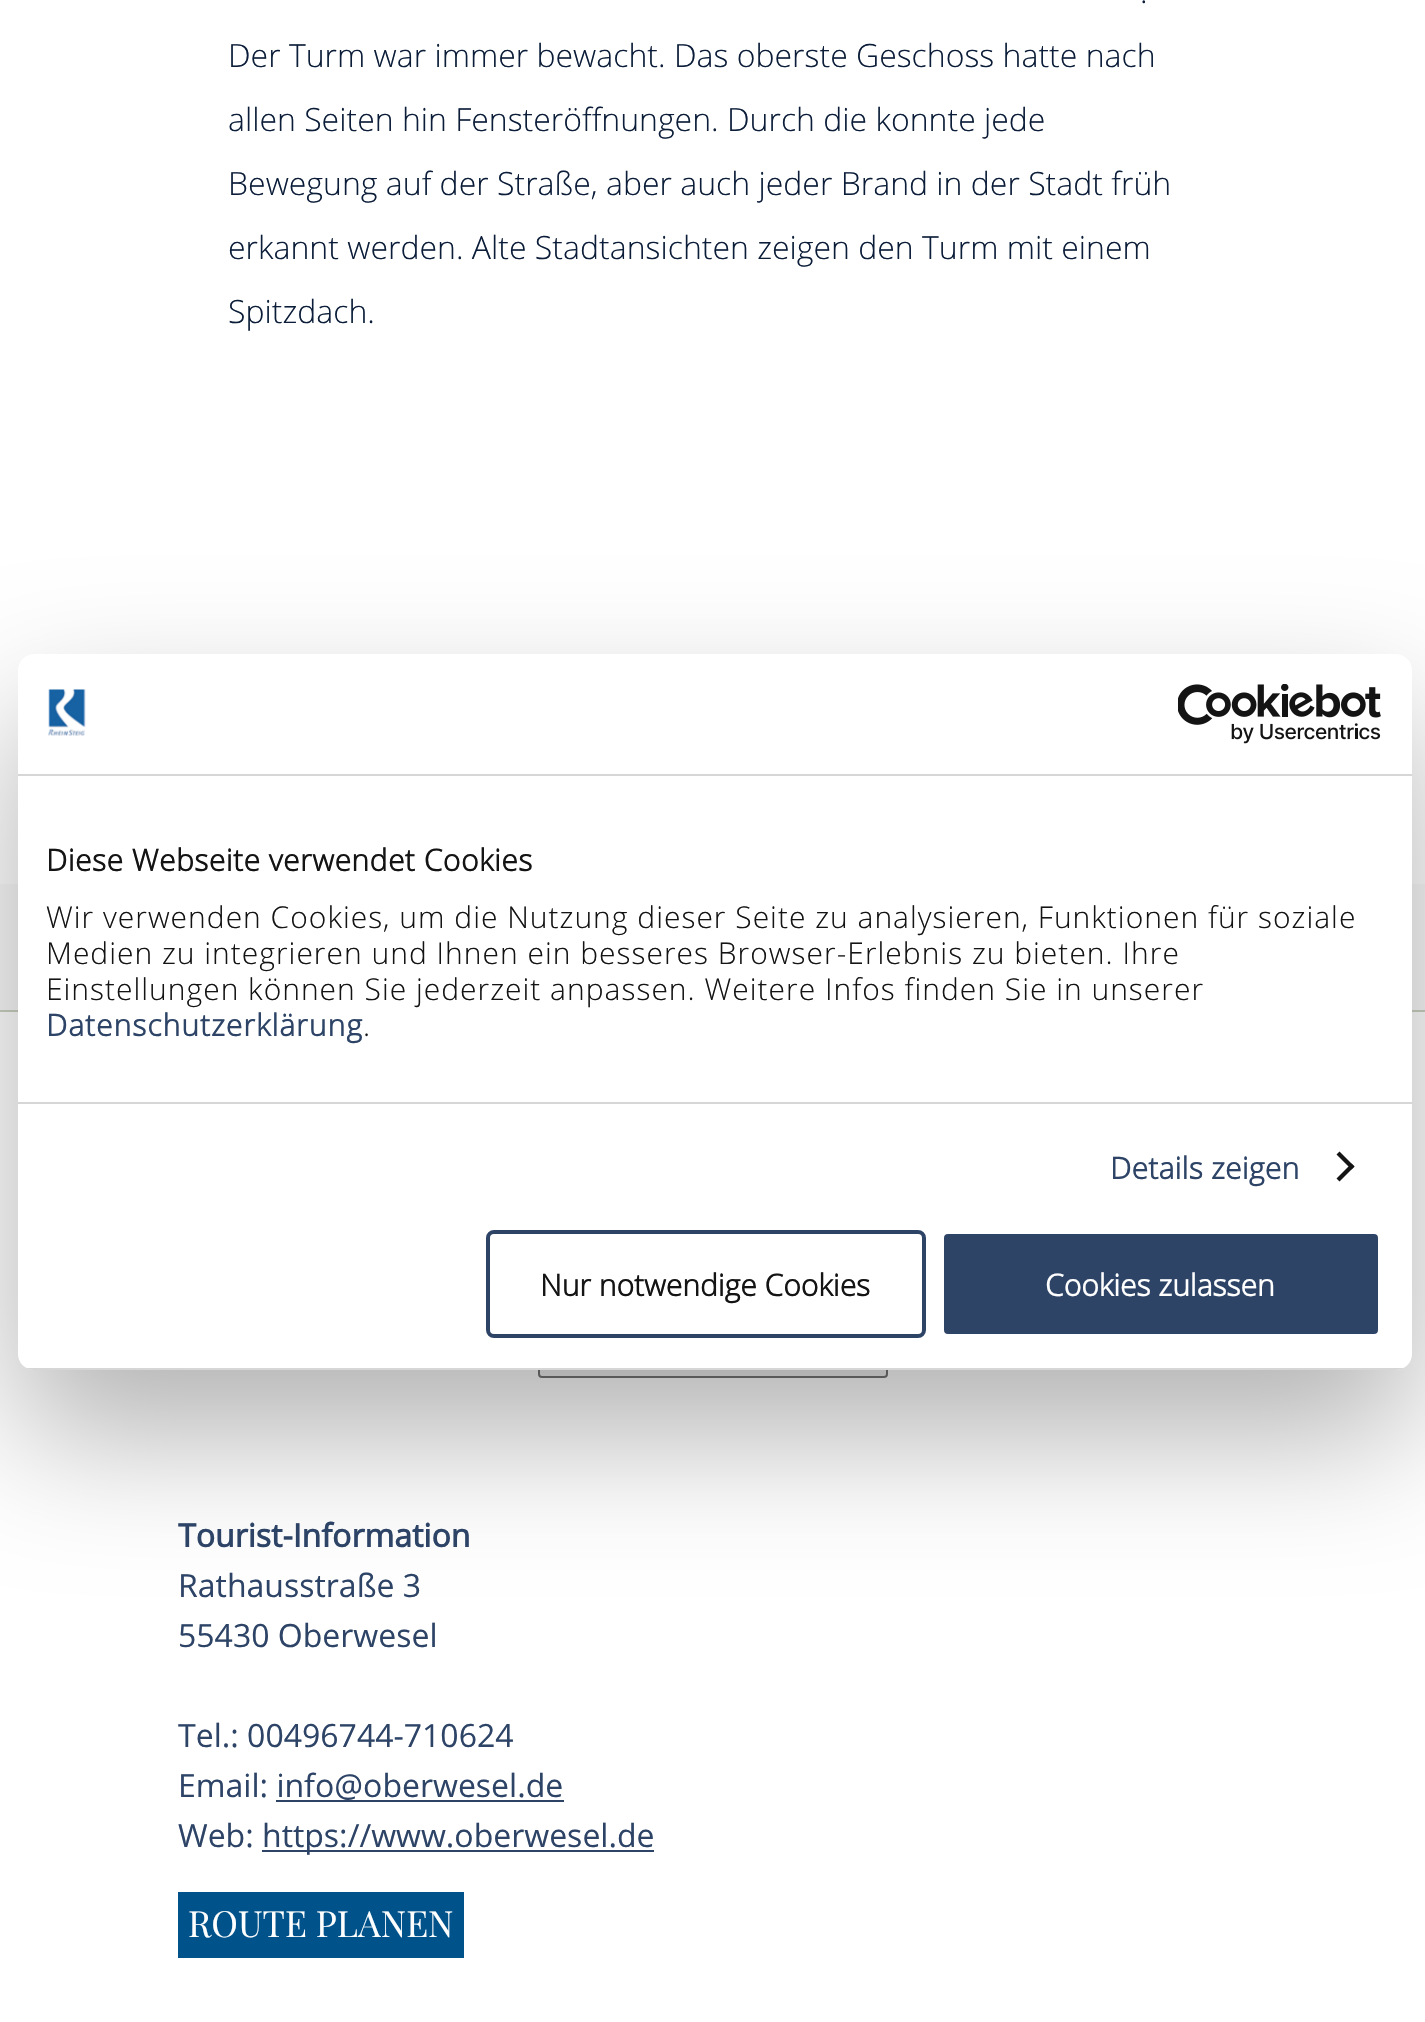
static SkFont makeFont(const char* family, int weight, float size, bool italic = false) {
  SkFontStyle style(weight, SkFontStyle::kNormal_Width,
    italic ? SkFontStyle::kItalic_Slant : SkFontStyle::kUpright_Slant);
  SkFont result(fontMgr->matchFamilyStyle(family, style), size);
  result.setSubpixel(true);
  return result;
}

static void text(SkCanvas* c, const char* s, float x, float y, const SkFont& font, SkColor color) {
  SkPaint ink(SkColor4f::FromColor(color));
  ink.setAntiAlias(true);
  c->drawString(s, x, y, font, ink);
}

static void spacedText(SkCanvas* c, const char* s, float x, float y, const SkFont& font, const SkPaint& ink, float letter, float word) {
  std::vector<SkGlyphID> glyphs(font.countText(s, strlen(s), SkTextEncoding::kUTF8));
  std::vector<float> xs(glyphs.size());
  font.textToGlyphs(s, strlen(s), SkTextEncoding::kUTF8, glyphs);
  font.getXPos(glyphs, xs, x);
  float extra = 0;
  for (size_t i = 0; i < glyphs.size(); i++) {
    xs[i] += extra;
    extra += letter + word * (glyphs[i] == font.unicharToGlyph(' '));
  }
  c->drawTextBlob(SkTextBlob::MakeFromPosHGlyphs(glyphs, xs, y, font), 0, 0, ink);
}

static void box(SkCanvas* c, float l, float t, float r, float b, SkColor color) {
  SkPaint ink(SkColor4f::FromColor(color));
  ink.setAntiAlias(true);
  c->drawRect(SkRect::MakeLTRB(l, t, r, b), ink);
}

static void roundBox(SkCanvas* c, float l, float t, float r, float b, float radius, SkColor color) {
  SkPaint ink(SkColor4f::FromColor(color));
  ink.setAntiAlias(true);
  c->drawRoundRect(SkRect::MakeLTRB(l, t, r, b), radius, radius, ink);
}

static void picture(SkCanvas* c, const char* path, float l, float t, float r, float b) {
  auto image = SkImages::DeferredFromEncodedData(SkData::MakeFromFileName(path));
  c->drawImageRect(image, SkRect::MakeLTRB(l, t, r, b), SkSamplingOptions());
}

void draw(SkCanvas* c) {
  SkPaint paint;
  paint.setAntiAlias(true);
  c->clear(0xffffffff);
  SkFont face1 = makeFont("Open Sans", 300, 32);
  text(c, ".", 1140, 3, face1, 0xff0b1d38);
  text(c, "Der Turm war immer bewacht. Das oberste Geschoss hatte nach", 228, 67, face1, 0xff0b1d38);
  text(c, "allen Seiten hin Fensteröffnungen. Durch die konnte jede", 228, 131, face1, 0xff0b1d38);
  text(c, "Bewegung auf der Straße, aber auch jeder Brand in der Stadt früh", 228, 195, face1, 0xff0b1d38);
  text(c, "erkannt werden. Alte Stadtansichten zeigen den Turm mit einem", 228, 259, face1, 0xff0b1d38);
  text(c, "Spitzdach.", 228, 323, face1, 0xff0b1d38);
  box(c, 0, 884, 1425, 1010, 0xfff9f9f9);
  box(c, 0, 1010, 1425, 1012, 0xffcad2c1);
  paint.setColor(0xffefefef);
  c->drawRoundRect(SkRect::MakeLTRB(539, 1337, 887, 1377), 3, 3, paint);
  paint.setStyle(SkPaint::kStroke_Style);
  paint.setStrokeWidth(2);
  paint.setColor(0xff767676);
  c->drawRoundRect(SkRect::MakeLTRB(539, 1337, 887, 1377), 3, 3, paint);
  paint.setStyle(SkPaint::kFill_Style);
  paint.setColor(0x4d000000);
  paint.setMaskFilter(SkMaskFilter::MakeBlur(kNormal_SkBlurStyle, 68));
  c->drawRoundRect(SkRect::MakeLTRB(18, 718, 1412, 1434), 16, 16, paint);
  paint.setMaskFilter(nullptr);
  roundBox(c, 18, 654, 1412, 1370, 16, 0xffffffff);
  box(c, 18, 774, 1412, 776, 0xffd6d6d6);
  picture(c, "img_01.png", 48, 689, 86, 736);
  picture(c, "img_02.png", 1178, 684, 1381, 744);
  box(c, 18, 1102, 1412, 1104, 0xffd6d6d6);
  SkFont face2 = makeFont("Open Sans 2", 700, 30);
  paint.setColor(0xff141414);
  spacedText(c, "Diese Webseite verwendet Cookies", 46, 871, face2, paint, 0.5f, 0);
  SkFont face3 = makeFont("Open Sans", 300, 30);
  spacedText(c, "Wir verwenden Cookies, um die Nutzung dieser Seite zu analysieren, Funktionen für soziale", 46, 928, face3, paint, 1, 0);
  spacedText(c, "Medien zu integrieren und Ihnen ein besseres Browser-Erlebnis zu bieten. Ihre", 46, 964, face3, paint, 1, 0);
  spacedText(c, "Einstellungen können Sie jederzeit anpassen. Weitere Infos finden Sie in unserer", 46, 1000, face3, paint, 1, 0);
  paint.setColor(0xff2d4467);
  spacedText(c, "Datenschutzerklärung", 46, 1036, face2, paint, 1, 0);
  paint.setColor(0xff141414);
  spacedText(c, ".", 363, 1036, face3, paint, 1, 0);
  paint.setColor(0xff2d4467);
  spacedText(c, "Details zeigen", 1110, 1179, face2, paint, 0.25f, 0);
  paint.setColor(0xff141414);
  c->drawPath(SkPathBuilder().moveTo(1339.5f, 1151.5f).lineTo(1354.5f, 1166.5f).lineTo(1351.5f, 1169.5f).lineTo(1336.5f, 1154.5f).close().detach(), paint);
  c->drawPath(SkPathBuilder().moveTo(1351.5f, 1163.5f).lineTo(1354.5f, 1166.5f).lineTo(1339.5f, 1181.5f).lineTo(1336.5f, 1178.5f).close().detach(), paint);
  c->save();
  c->clipPath(SkPathBuilder().moveTo(34, 654).lineTo(1396, 654).cubicTo(1405, 654, 1412, 661, 1412, 670).lineTo(1412, 1354).cubicTo(1412, 1363, 1405, 1370, 1396, 1370).lineTo(34, 1370).cubicTo(25, 1370, 18, 1363, 18, 1354).lineTo(18, 670).cubicTo(18, 661, 25, 654, 34, 654).close().detach(), true);
  box(c, 18, 1368, 1412, 1370, 0xffd6d6d6);
  c->restore();
  paint.setStyle(SkPaint::kStroke_Style);
  paint.setStrokeWidth(4);
  paint.setColor(0xff2d4467);
  c->drawRoundRect(SkRect::MakeLTRB(488, 1232, 924, 1336), 6, 6, paint);
  text(c, "Nur notwendige Cookies", 540, 1296, face2, 0xff141414);
  paint.setStyle(SkPaint::kFill_Style);
  c->drawRoundRect(SkRect::MakeLTRB(942, 1232, 1380, 1336), 6, 6, paint);
  paint.setStyle(SkPaint::kStroke_Style);
  paint.setColor(0xffffffff);
  c->drawRoundRect(SkRect::MakeLTRB(942, 1232, 1380, 1336), 6, 6, paint);
  text(c, "Cookies zulassen", 1045, 1296, face2, 0xffffffff);
  SkFont face4 = makeFont("Open Sans", 700, 32);
  text(c, "Tourist-Information", 178, 1547, face4, 0xff2d4467);
  SkFont face5 = makeFont("Open Sans", 400, 32);
  text(c, "Rathausstraße 3", 178, 1597, face5, 0xff2d4467);
  text(c, "55430 Oberwesel", 178, 1647, face5, 0xff2d4467);
  text(c, "Tel.: 00496744-710624", 178, 1747, face5, 0xff2d4467);
  text(c, "Email: info@oberwesel.de", 178, 1797, face5, 0xff2d4467);
  box(c, 276, 1800, 564, 1802, 0xff2d4467);
  text(c, "Web:", 178, 1847, face5, 0xff2d4467);
  box(c, 262, 1850, 654, 1852, 0xff2d4467);
  text(c, "https://www.oberwesel.de", 262, 1847, face5, 0xff2d4467);
  box(c, 178, 1892, 464, 1958, 0xff00528b);
  SkFont face6 = makeFont("Playfair Display", 400, 36);
  text(c, "ROUTE PLANEN", 188, 1937, face6, 0xffffffff);
}
